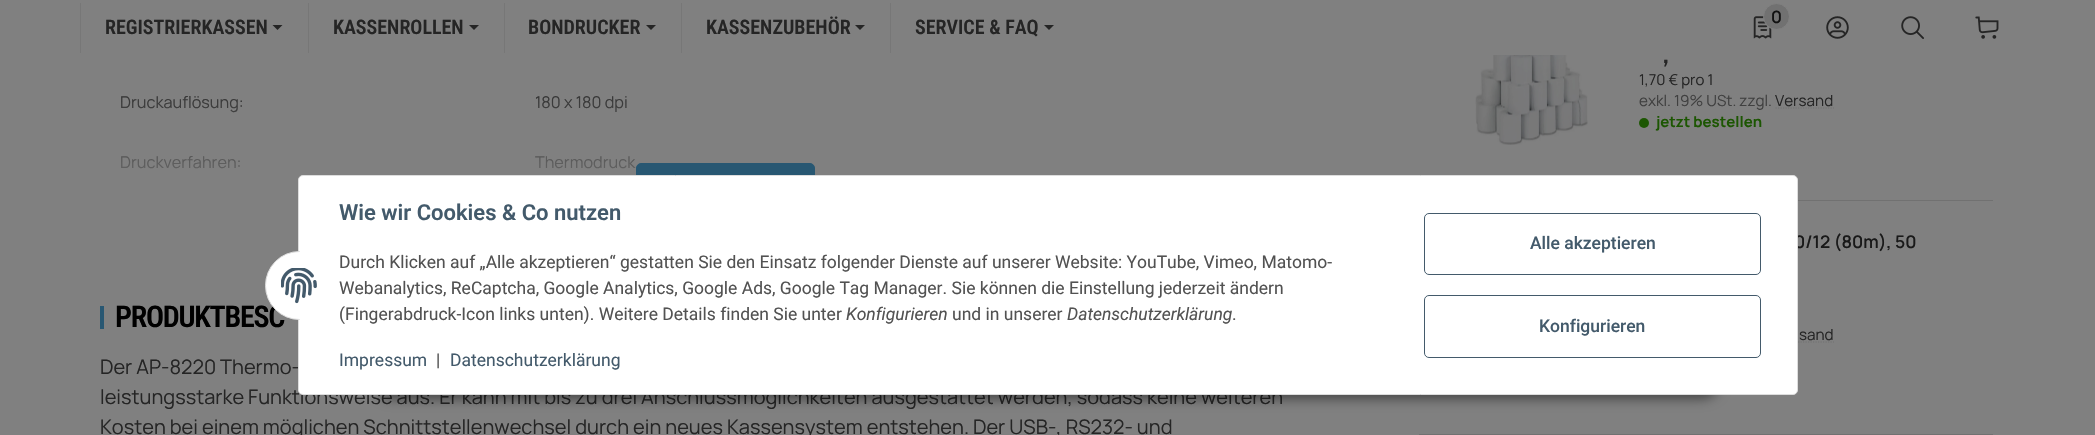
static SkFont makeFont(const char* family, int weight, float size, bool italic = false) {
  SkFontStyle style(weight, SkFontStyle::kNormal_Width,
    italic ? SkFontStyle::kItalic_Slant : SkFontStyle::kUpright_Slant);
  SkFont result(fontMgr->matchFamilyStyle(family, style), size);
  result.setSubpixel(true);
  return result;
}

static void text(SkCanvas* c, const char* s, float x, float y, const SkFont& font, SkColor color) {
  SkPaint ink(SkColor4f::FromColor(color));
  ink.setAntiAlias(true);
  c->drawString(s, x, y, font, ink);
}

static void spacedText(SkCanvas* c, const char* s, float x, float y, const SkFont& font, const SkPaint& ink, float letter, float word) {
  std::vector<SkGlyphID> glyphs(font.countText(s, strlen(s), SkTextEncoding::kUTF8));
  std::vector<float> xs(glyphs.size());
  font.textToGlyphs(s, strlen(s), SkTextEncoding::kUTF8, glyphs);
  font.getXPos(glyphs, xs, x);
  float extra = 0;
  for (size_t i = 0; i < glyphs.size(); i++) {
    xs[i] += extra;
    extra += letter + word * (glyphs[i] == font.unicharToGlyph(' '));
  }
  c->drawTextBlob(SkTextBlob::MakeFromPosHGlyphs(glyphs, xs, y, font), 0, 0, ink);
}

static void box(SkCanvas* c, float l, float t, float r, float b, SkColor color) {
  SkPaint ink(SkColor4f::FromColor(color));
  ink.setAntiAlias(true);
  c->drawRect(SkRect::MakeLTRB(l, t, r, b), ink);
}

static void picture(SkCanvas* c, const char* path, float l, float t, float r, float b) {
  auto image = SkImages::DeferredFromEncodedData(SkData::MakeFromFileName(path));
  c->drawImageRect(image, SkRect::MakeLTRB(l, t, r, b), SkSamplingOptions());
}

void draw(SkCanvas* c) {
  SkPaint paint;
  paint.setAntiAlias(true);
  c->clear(0xff808080);
  box(c, 80, 3, 81, 53, 0xff777777);
  SkFont face1 = makeFont("Roboto Condensed", 600, 20);
  text(c, "REGISTRIERKASSEN", 105, 34, face1, 0xff252525);
  paint.setColor(0xff252525);
  c->drawPath(SkPathBuilder().moveTo(272.5f, 25).lineTo(282.5f, 25).lineTo(277.5f, 30).close().detach(), paint);
  box(c, 308, 3, 309, 53, 0xff777777);
  text(c, "KASSENROLLEN", 333, 34, face1, 0xff252525);
  c->drawPath(SkPathBuilder().moveTo(469, 25).lineTo(479, 25).lineTo(474, 30).close().detach(), paint);
  box(c, 504, 3, 505, 53, 0xff777777);
  text(c, "BONDRUCKER", 528, 34, face1, 0xff252525);
  c->drawPath(SkPathBuilder().moveTo(646, 25).lineTo(656, 25).lineTo(651, 30).close().detach(), paint);
  box(c, 681, 3, 682, 53, 0xff777777);
  text(c, "KASSENZUBEHÖR", 706, 34, face1, 0xff252525);
  c->drawPath(SkPathBuilder().moveTo(855, 25).lineTo(865, 25).lineTo(860, 30).close().detach(), paint);
  box(c, 890, 3, 891, 53, 0xff777777);
  text(c, "SERVICE & FAQ", 915, 34, face1, 0xff252525);
  c->drawPath(SkPathBuilder().moveTo(1044, 25).lineTo(1054, 25).lineTo(1049, 30).close().detach(), paint);
  picture(c, "img_01.png", 1753, 16, 1772, 39);
  paint.setColor(0xff717171);
  c->drawCircle(1776.5f, 16.5f, 13, paint);
  paint.setStyle(SkPaint::kStroke_Style);
  paint.setStrokeWidth(1);
  paint.setColor(0xff808080);
  c->drawCircle(1776.5f, 16.5f, 13, paint);
  SkFont face2 = makeFont("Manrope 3", 200, 17);
  text(c, "0", 1771, 23, face2, 0xff111111);
  picture(c, "img_02.png", 1826, 16, 1849, 39);
  picture(c, "img_03.png", 1901, 16, 1924, 39);
  picture(c, "img_04.png", 1975, 16, 1999, 39);
  SkFont face3 = makeFont("Manrope", 200, 16.25f);
  text(c, "Druckauflösung:", 120, 108, face3, 0xff252525);
  text(c, "180 x 180 dpi", 535, 108, face3, 0xff252525);
  text(c, "Druckverfahren:", 120, 168, face3, 0xff252525);
  text(c, "Thermodruck", 535, 168, face3, 0xff252525);
  paint.setStyle(SkPaint::kFill_Style);
  {
    const SkColor colors[] = {0xff808080, 0x00808080};
    const float stops[] = {0.15f, 1};
    const SkPoint ends[] = {{725, 253}, {725, 65}};
    paint.setShader(SkGradientShader::MakeLinear(ends, colors, stops, 2, SkTileMode::kClamp));
    paint.setAlpha(255);
  }
  c->drawRect(SkRect::MakeLTRB(121, 96, 636, 169), paint);
  paint.setShader(nullptr);
  paint.setColor(0xff285772);
  c->drawRoundRect(SkRect::MakeLTRB(636.5f, 163.5f, 814.5f, 212.5f), 4.5f, 4.5f, paint);
  paint.setStyle(SkPaint::kStroke_Style);
  c->drawRoundRect(SkRect::MakeLTRB(636.5f, 163.5f, 814.5f, 212.5f), 4.5f, 4.5f, paint);
  box(c, 100, 306, 104, 329, 0xff285772);
  SkFont face4 = makeFont("Roboto Condensed", 600, 30);
  paint.setStyle(SkPaint::kFill_Style);
  paint.setColor(0xff000000);
  spacedText(c, "PRODUKTBESC", 115, 327, face4, paint, -1.25f, 0);
  SkFont face5 = makeFont("Manrope", 200, 20);
  text(c, "Der AP-8220 Thermo-", 100, 374, face5, 0xff252525);
  text(c, "leistungsstarke Funktionsweise aus. Er kann mit bis zu drei Anschlussmöglichkeiten ausgestattet werden, sodass keine weiteren", 100, 404, face5, 0xff252525);
  text(c, "Kosten bei einem möglichen Schnittstellenwechsel durch ein neues Kassensystem entstehen. Der USB-, RS232- und", 100, 434, face5, 0xff252525);
  box(c, 1798, 200, 1993, 201, 0xff717171);
  picture(c, "img_05.png", 1475, 55, 1588, 145);
  SkFont face6 = makeFont("Bebas Neue", 400, 30);
  text(c, ",", 1663, 63, face6, 0xff252525);
  SkFont face7 = makeFont("Manrope", 200, 15);
  text(c, "1,70 € pro 1", 1639, 85, face7, 0xff252525);
  SkFont face8 = makeFont("Manrope", 200, 15.25f);
  text(c, "exkl. 19% USt. zzgl.", 1639, 106, face8, 0xff404040);
  text(c, "Versand", 1775, 106, face8, 0xff252525);
  paint.setStyle(SkPaint::kStroke_Style);
  paint.setStrokeWidth(1.2f);
  paint.setColor(0xff717171);
  paint.setPathEffect(SkDashPathEffect::Make({{1.25f, 1.25f}}, 0));
  c->drawPath(SkPathBuilder().moveTo(1775.5f, 108).lineTo(1834, 108).detach(), paint);
  paint.setPathEffect(nullptr);
  paint.setStyle(SkPaint::kFill_Style);
  paint.setColor(0xff1c5602);
  c->drawCircle(1644, 123, 5, paint);
  SkFont face9 = makeFont("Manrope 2", 200, 15);
  text(c, "jetzt bestellen", 1656, 127, face9, 0xff1c5602);
  box(c, 1419, 434, 1993, 435, 0xff717171);
  SkFont face10 = makeFont("Manrope 3", 200, 17.5f);
  text(c, "0/12 (80m), 50", 1794, 248, face10, 0xff191919);
  text(c, "sand", 1799, 340, face8, 0xff252525);
  paint.setStyle(SkPaint::kStroke_Style);
  paint.setColor(0xff717171);
  paint.setPathEffect(SkDashPathEffect::Make({{1.25f, 1.25f}}, 0));
  c->drawPath(SkPathBuilder().moveTo(1775.5f, 342).lineTo(1834, 342).detach(), paint);
  paint.setPathEffect(nullptr);
  paint.setStyle(SkPaint::kFill_Style);
  paint.setColor(0x73000000);
  paint.setMaskFilter(SkMaskFilter::MakeBlur(kNormal_SkBlurStyle, 6));
  c->drawRoundRect(SkRect::MakeLTRB(374, 359, 1721, 399), 20, 20, paint);
  paint.setMaskFilter(nullptr);
  paint.setColor(0xffffffff);
  c->drawRoundRect(SkRect::MakeLTRB(298.5f, 175.5f, 1797.5f, 394.5f), 4.5f, 4.5f, paint);
  paint.setStyle(SkPaint::kStroke_Style);
  paint.setStrokeWidth(1);
  paint.setColor(0xffdddddd);
  c->drawRoundRect(SkRect::MakeLTRB(298.5f, 175.5f, 1797.5f, 394.5f), 4.5f, 4.5f, paint);
  paint.setStyle(SkPaint::kFill_Style);
  paint.setColor(0xffffffff);
  c->drawCircle(299.5f, 285.5f, 34, paint);
  paint.setStyle(SkPaint::kStroke_Style);
  paint.setColor(0xffdddddd);
  c->drawCircle(299.5f, 285.5f, 34, paint);
  box(c, 300, 251, 334, 320, 0xffffffff);
  picture(c, "img_06.png", 281, 268, 317, 304);
  SkFont face11 = makeFont("Roboto", 600, 22);
  text(c, "Wie wir Cookies & Co nutzen", 339, 220, face11, 0xff435a6b);
  SkFont face12 = makeFont("Roboto", 400, 17.5f);
  text(c, "Durch Klicken auf „Alle akzeptieren“ gestatten Sie den Einsatz folgender Dienste auf unserer Website: YouTube, Vimeo, Matomo-", 339, 268, face12, 0xff525252);
  text(c, "Webanalytics, ReCaptcha, Google Analytics, Google Ads, Google Tag Manager. Sie können die Einstellung jederzeit ändern", 339, 294, face12, 0xff525252);
  text(c, "(Fingerabdruck-Icon links unten). Weitere Details finden Sie unter", 339, 320, face12, 0xff525252);
  SkFont face13 = makeFont("Roboto", 400, 17.5f, true);
  text(c, "Konfigurieren", 846, 320, face13, 0xff525252);
  text(c, "und in unserer", 952, 320, face12, 0xff525252);
  text(c, "Datenschutzerklärung", 1067, 320, face13, 0xff525252);
  text(c, ".", 1232, 320, face12, 0xff525252);
  text(c, "Impressum", 339, 366, face12, 0xff435a6b);
  text(c, "|", 436, 366, face12, 0xff525252);
  text(c, "Datenschutzerklärung", 450, 366, face12, 0xff435a6b);
  paint.setColor(0xff435a6b);
  c->drawRoundRect(SkRect::MakeLTRB(1424.5f, 213.5f, 1760.5f, 274.5f), 4.5f, 4.5f, paint);
  SkFont face14 = makeFont("Roboto", 500, 17.5f);
  text(c, "Alle akzeptieren", 1530, 249, face14, 0xff435a6b);
  c->drawRoundRect(SkRect::MakeLTRB(1424.5f, 295.5f, 1760.5f, 357.5f), 4.5f, 4.5f, paint);
  text(c, "Konfigurieren", 1539, 332, face14, 0xff435a6b);
}
